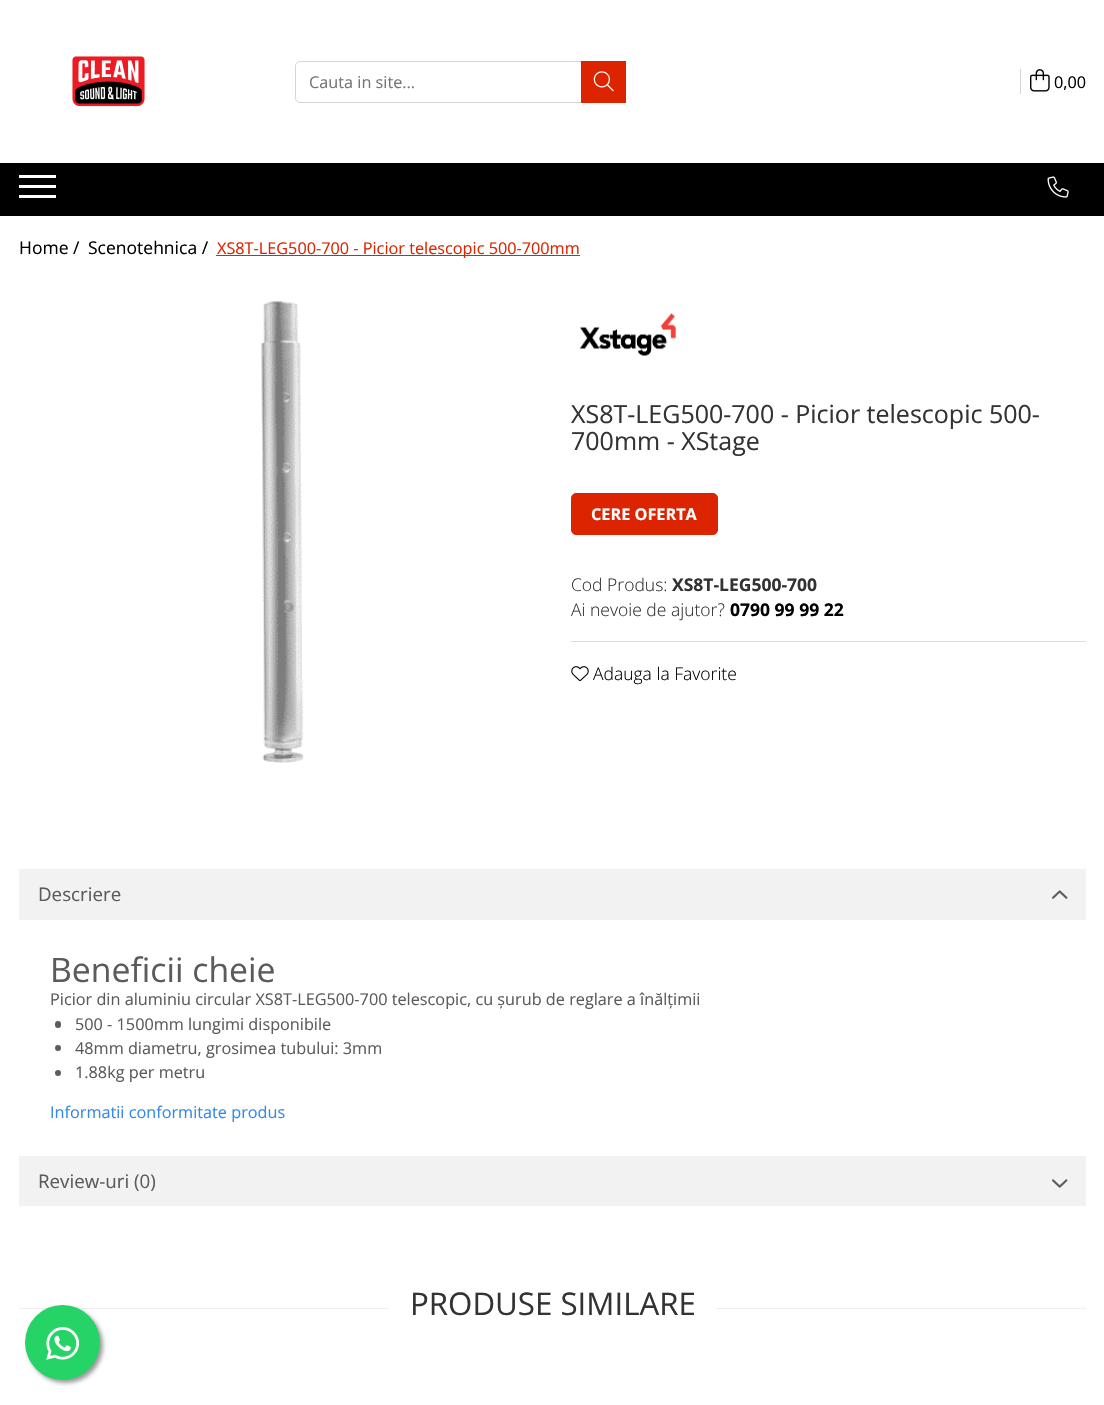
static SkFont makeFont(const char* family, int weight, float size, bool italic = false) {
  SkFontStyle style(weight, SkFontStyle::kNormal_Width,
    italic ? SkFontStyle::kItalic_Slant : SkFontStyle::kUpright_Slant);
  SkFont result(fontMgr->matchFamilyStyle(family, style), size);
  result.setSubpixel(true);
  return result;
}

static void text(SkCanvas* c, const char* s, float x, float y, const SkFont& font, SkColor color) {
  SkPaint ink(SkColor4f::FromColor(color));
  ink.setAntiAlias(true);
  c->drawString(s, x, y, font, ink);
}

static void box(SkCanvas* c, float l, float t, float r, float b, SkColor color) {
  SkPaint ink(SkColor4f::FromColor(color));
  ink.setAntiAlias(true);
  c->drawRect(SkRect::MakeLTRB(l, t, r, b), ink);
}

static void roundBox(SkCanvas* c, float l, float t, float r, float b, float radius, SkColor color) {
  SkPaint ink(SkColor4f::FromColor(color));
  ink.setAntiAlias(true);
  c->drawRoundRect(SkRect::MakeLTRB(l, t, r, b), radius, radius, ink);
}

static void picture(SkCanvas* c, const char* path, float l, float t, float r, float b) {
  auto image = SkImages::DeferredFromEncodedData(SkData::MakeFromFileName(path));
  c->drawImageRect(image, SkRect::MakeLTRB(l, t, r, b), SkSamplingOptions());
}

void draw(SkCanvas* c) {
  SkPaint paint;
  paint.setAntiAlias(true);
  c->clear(0xffffffff);
  picture(c, "img_01.png", 72, 56, 145, 107);
  paint.setStyle(SkPaint::kStroke_Style);
  paint.setStrokeWidth(1);
  paint.setColor(0xffd5d5d5);
  c->drawRoundRect(SkRect::MakeLTRB(295.5f, 61.5f, 625.5f, 102.5f), 4.5f, 4.5f, paint);
  SkFont face1 = makeFont("Open Sans", 400, 16.25f);
  text(c, "Cauta in site...", 309, 88, face1, 0xff757575);
  box(c, 581, 61, 626, 103, 0xffdd2400);
  picture(c, "img_02.png", 593, 71, 614, 92);
  box(c, 1020, 69, 1021, 94, 0xffd5d5d5);
  picture(c, "img_03.png", 1030, 69, 1050, 92);
  text(c, "0,00", 1054, 88, face1, 0xff000000);
  box(c, 0, 163, 1104, 216, 0xff000000);
  box(c, 19, 185, 56, 188, 0xffffffff);
  box(c, 19, 175, 56, 178, 0xffffffff);
  box(c, 19, 195, 56, 198, 0xffffffff);
  picture(c, "img_04.png", 1047, 176, 1069, 198);
  SkFont face2 = makeFont("Open Sans", 400, 17.5f);
  text(c, "Home /", 19, 254, face2, 0xff000000);
  text(c, "Scenotehnica /", 88, 254, face2, 0xff000000);
  box(c, 216, 255, 580, 256, 0xffdd2400);
  text(c, "XS8T-LEG500-700 - Picior telescopic 500-700mm", 217, 254, face1, 0xffdd2400);
  picture(c, "img_05.png", 261, 301, 304, 763);
  picture(c, "img_06.png", 579, 312, 677, 357);
  SkFont face3 = makeFont("Open Sans", 400, 25);
  text(c, "XS8T-LEG500-700 - Picior telescopic 500-", 571, 423, face3, 0xff333333);
  text(c, "700mm - XStage", 571, 450, face3, 0xff333333);
  paint.setStyle(SkPaint::kFill_Style);
  paint.setColor(0xffdd2400);
  c->drawRoundRect(SkRect::MakeLTRB(571.5f, 493.5f, 717.5f, 534.5f), 4.5f, 4.5f, paint);
  paint.setStyle(SkPaint::kStroke_Style);
  c->drawRoundRect(SkRect::MakeLTRB(571.5f, 493.5f, 717.5f, 534.5f), 4.5f, 4.5f, paint);
  SkFont face4 = makeFont("Open Sans", 700, 16.25f);
  text(c, "CERE OFERTA", 591, 520, face4, 0xffffffff);
  SkFont face5 = makeFont("Open Sans", 300, 17.5f);
  text(c, "Cod Produs:", 571, 591, face5, 0xff333333);
  SkFont face6 = makeFont("Open Sans", 700, 17.5f);
  text(c, "XS8T-LEG500-700", 672, 591, face6, 0xff333333);
  text(c, "Ai nevoie de ajutor?", 571, 616, face5, 0xff333333);
  text(c, "0790 99 99 22", 730, 616, face6, 0xff000000);
  box(c, 571, 641, 1086, 642, 0xffdbdbdb);
  picture(c, "img_07.png", 571, 666, 589, 681);
  text(c, "Adauga la Favorite", 593, 680, face5, 0xff000000);
  box(c, 19, 869, 1086, 920, 0xfff2f2f2);
  SkFont face7 = makeFont("Open Sans", 400, 18.75f);
  text(c, "Descriere", 38, 901, face7, 0xff5b5b5b);
  picture(c, "img_08.png", 1052, 890, 1068, 899);
  SkFont face8 = makeFont("Open Sans", 400, 33.75f);
  text(c, "Beneficii cheie", 50, 982, face8, 0xff5b5b5b);
  text(c, "Picior din aluminiu circular XS8T-LEG500-700 telescopic, cu șurub de reglare a înălțimii", 50, 1005, face1, 0xff5b5b5b);
  roundBox(c, 55, 1021, 61, 1028, 3, 0xff5b5b5b);
  text(c, "500 - 1500mm lungimi disponibile", 75, 1030, face1, 0xff5b5b5b);
  paint.setStyle(SkPaint::kFill_Style);
  paint.setColor(0xff5b5b5b);
  c->drawCircle(58, 1048, 3, paint);
  text(c, "48mm diametru, grosimea tubului: 3mm", 75, 1054, face1, 0xff5b5b5b);
  c->drawCircle(58, 1073, 3, paint);
  text(c, "1.88kg per metru", 75, 1078, face1, 0xff5b5b5b);
  text(c, "Informatii conformitate produs", 50, 1118, face1, 0xff3388eb);
  box(c, 19, 1156, 1086, 1206, 0xfff2f2f2);
  text(c, "Review-uri (0)", 38, 1188, face7, 0xff5b5b5b);
  picture(c, "img_09.png", 1052, 1179, 1068, 1188);
  box(c, 19, 1308, 1086, 1309, 0xffeeeeee);
  box(c, 389, 1308, 716, 1309, 0xffffffff);
  SkFont face9 = makeFont("Open Sans", 400, 31.25f);
  text(c, "PRODUSE SIMILARE", 410, 1315, face9, 0xff333333);
  paint.setColor(0xff999999);
  paint.setMaskFilter(SkMaskFilter::MakeBlur(kNormal_SkBlurStyle, 2));
  c->drawRoundRect(SkRect::MakeLTRB(28, 1308, 103, 1383), 37.5f, 37.5f, paint);
  paint.setMaskFilter(nullptr);
  paint.setColor(0xff25d366);
  c->drawCircle(62.5f, 1342.5f, 37.5f, paint);
  picture(c, "img_10.png", 46, 1327, 80, 1360);
}
